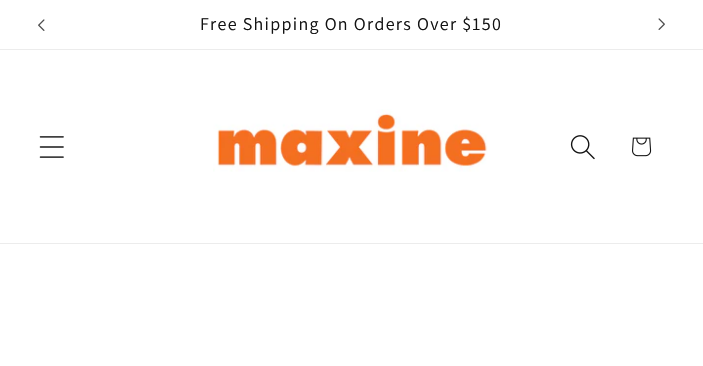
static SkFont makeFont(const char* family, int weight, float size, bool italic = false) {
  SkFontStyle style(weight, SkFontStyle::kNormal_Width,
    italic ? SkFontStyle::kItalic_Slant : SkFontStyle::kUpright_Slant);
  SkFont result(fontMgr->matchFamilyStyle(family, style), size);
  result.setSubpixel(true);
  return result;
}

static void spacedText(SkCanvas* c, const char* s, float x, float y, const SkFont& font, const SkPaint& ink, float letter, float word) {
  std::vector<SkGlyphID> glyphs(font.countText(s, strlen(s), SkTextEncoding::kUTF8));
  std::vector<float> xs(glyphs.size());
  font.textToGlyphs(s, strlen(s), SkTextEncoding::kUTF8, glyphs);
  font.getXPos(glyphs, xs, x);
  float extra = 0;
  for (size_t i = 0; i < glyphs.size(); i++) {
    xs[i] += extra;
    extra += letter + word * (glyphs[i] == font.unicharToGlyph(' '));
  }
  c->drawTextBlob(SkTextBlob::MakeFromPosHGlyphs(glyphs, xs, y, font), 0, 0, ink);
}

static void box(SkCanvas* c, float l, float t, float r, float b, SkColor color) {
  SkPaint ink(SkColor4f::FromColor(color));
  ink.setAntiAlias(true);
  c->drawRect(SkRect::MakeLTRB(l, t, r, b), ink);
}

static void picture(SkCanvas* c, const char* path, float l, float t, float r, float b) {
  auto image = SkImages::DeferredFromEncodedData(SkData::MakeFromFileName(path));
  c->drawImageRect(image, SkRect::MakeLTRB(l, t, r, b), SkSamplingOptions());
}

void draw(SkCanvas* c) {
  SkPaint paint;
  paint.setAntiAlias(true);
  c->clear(0xffffffff);
  box(c, 0, 49, 703, 50, 0xffececec);
  picture(c, "img_01.png", 38, 19, 45, 31);
  SkFont face1 = makeFont("Assistant", 400, 18);
  paint.setColor(0xff121212);
  spacedText(c, "Free Shipping On Orders Over $150", 200, 30, face1, paint, 1.3f, 0);
  picture(c, "img_02.png", 658, 18, 665, 30);
  box(c, 0, 243, 703, 244, 0xffececec);
  picture(c, "img_03.png", 39, 136, 64, 158);
  picture(c, "img_04.png", 213, 109, 488, 172);
  picture(c, "img_05.png", 570, 135, 595, 160);
  picture(c, "img_06.png", 632, 137, 652, 157);
}
